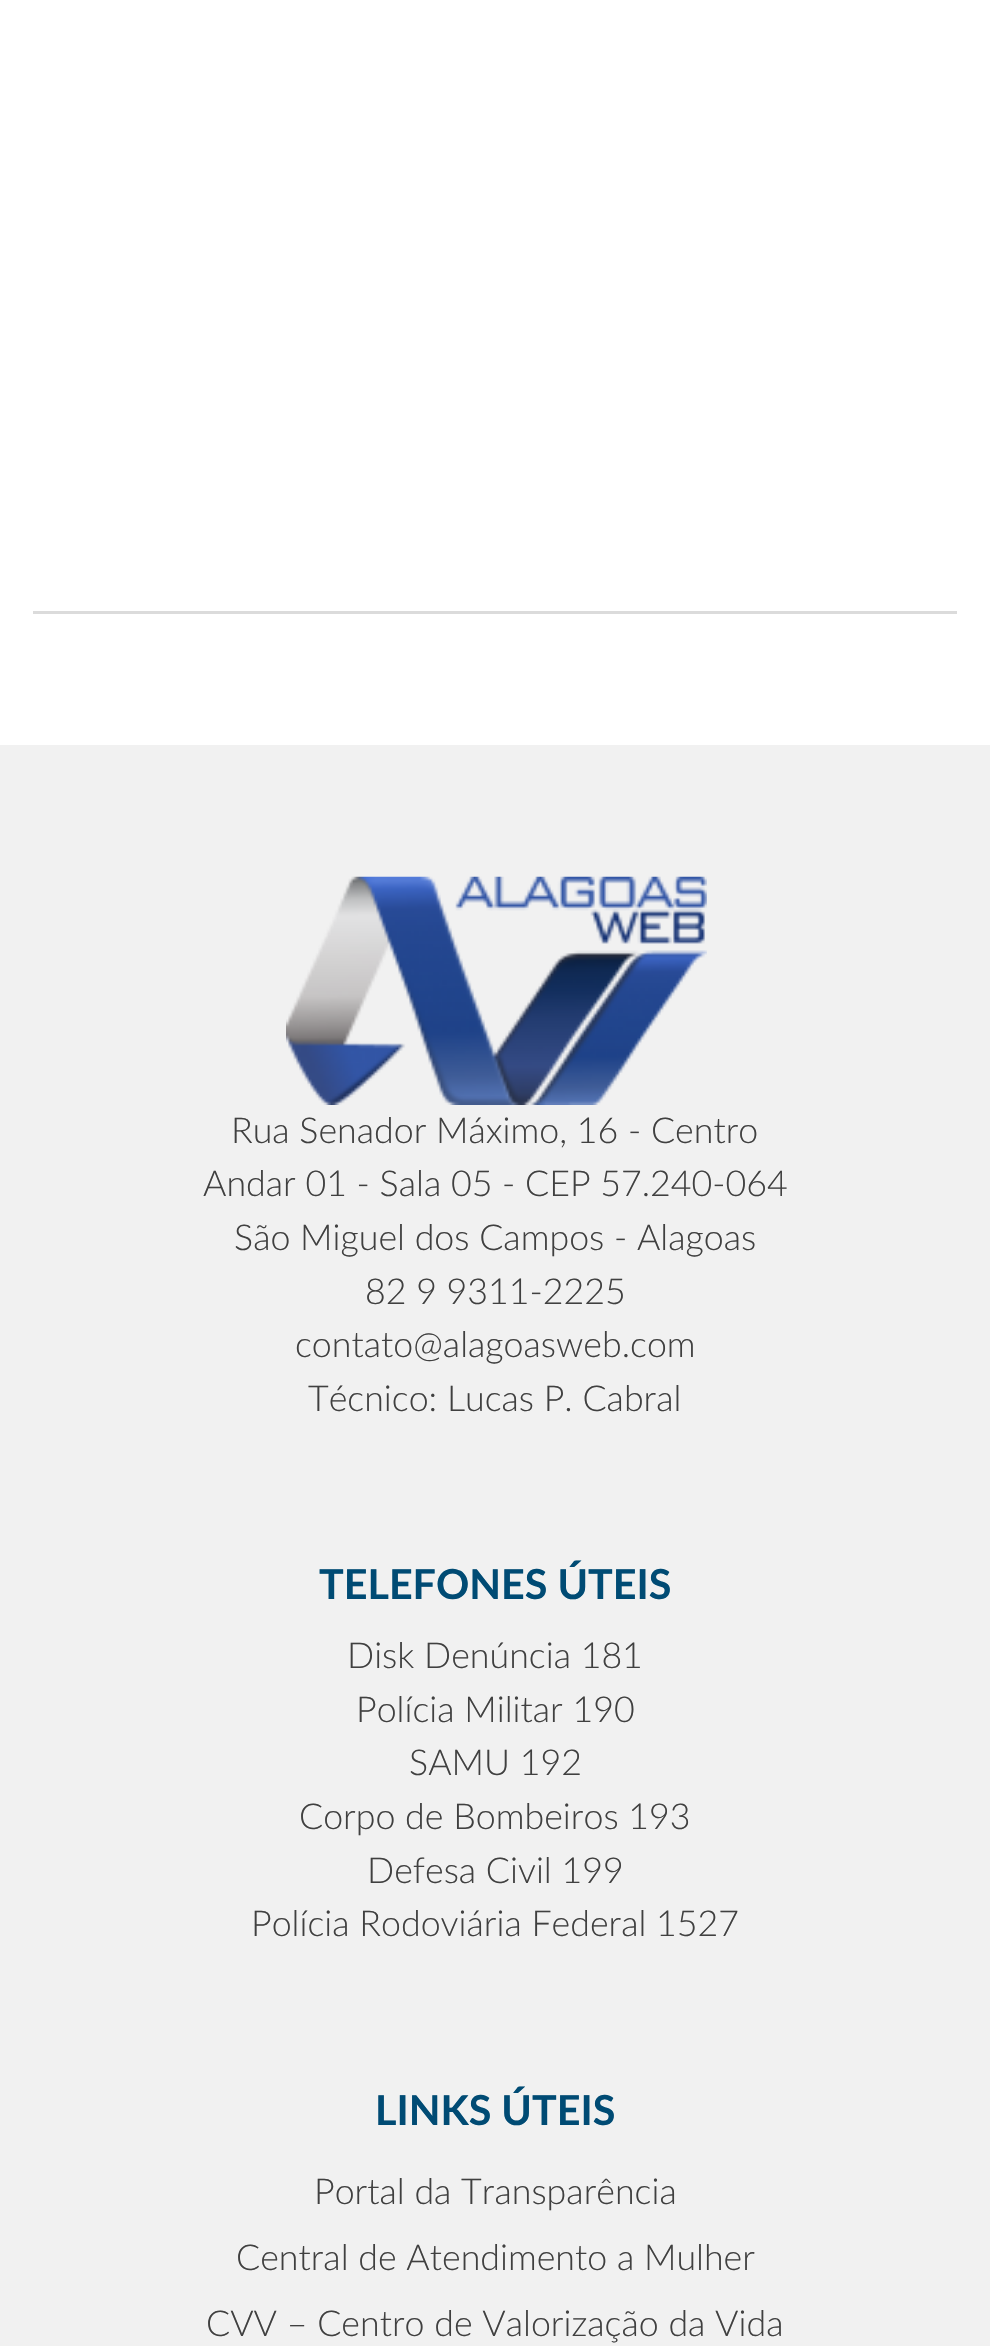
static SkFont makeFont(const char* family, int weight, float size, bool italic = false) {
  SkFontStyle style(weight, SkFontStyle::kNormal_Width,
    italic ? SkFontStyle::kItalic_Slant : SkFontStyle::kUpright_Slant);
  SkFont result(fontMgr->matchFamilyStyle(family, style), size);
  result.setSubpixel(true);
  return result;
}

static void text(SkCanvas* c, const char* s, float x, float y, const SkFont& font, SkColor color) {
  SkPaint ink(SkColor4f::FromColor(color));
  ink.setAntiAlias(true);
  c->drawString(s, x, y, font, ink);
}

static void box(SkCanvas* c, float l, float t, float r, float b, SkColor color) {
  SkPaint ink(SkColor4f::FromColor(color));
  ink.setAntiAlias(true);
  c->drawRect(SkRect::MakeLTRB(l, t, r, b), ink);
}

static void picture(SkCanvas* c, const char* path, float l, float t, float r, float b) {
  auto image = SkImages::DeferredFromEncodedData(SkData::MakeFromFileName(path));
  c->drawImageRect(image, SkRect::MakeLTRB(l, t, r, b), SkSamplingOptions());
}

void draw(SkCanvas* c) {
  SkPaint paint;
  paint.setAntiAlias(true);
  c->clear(0xffffffff);
  box(c, 33, 611, 957, 614, 0xffdbdbdb);
  box(c, 0, 745, 990, 2346, 0xfff1f1f1);
  picture(c, "img_01.png", 286, 876, 707, 1105);
  SkFont face1 = makeFont("Lato", 300, 35.75f);
  text(c, "Rua Senador Máximo, 16 - Centro", 231, 1143, face1, 0xff404040);
  text(c, "Andar 01 - Sala 05 - CEP 57.240-064", 203, 1196, face1, 0xff404040);
  text(c, "São Miguel dos Campos - Alagoas", 234, 1250, face1, 0xff404040);
  text(c, "82 9 9311-2225", 365, 1304, face1, 0xff404040);
  text(c, "contato@alagoasweb.com", 295, 1357, face1, 0xff404040);
  text(c, "Técnico: Lucas P. Cabral", 308, 1411, face1, 0xff404040);
  SkFont face2 = makeFont("Lato", 700, 41.25f);
  text(c, "TELEFONES ÚTEIS", 319, 1599, face2, 0xff004b74);
  text(c, "Disk Denúncia 181", 347, 1668, face1, 0xff404040);
  text(c, "Polícia Militar 190", 356, 1722, face1, 0xff404040);
  text(c, "SAMU 192", 409, 1775, face1, 0xff404040);
  text(c, "Corpo de Bombeiros 193", 299, 1829, face1, 0xff404040);
  text(c, "Defesa Civil 199", 367, 1883, face1, 0xff404040);
  text(c, "Polícia Rodoviária Federal 1527", 251, 1936, face1, 0xff404040);
  text(c, "LINKS ÚTEIS", 375, 2125, face2, 0xff004b74);
  text(c, "Portal da Transparência", 314, 2204, face1, 0xff404040);
  text(c, "Central de Atendimento a Mulher", 236, 2270, face1, 0xff404040);
  text(c, "CVV – Centro de Valorização da Vida", 206, 2336, face1, 0xff404040);
}
